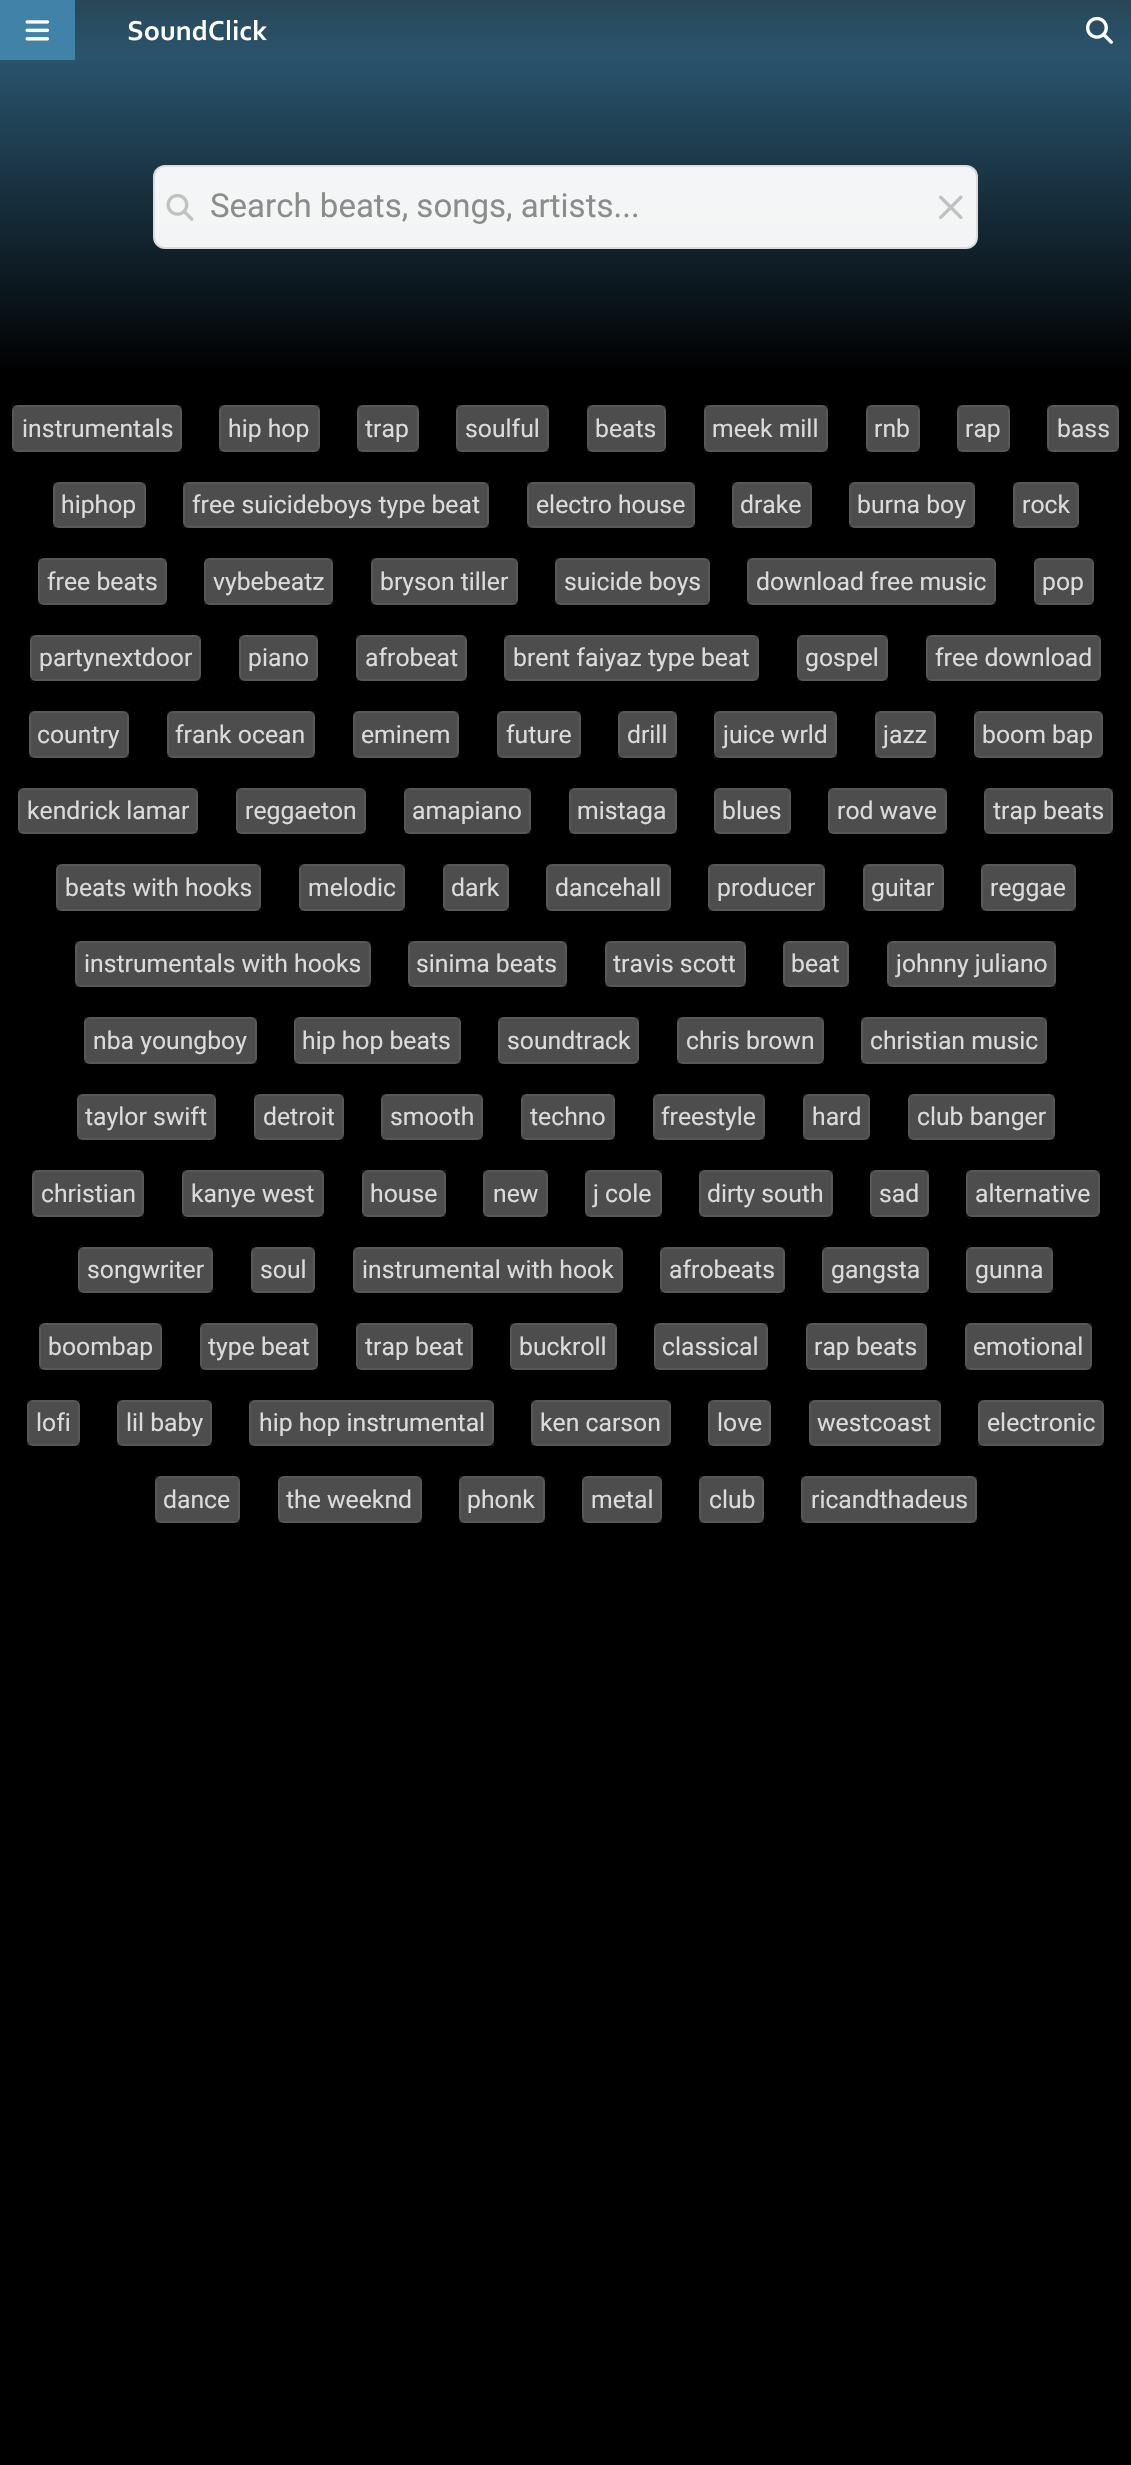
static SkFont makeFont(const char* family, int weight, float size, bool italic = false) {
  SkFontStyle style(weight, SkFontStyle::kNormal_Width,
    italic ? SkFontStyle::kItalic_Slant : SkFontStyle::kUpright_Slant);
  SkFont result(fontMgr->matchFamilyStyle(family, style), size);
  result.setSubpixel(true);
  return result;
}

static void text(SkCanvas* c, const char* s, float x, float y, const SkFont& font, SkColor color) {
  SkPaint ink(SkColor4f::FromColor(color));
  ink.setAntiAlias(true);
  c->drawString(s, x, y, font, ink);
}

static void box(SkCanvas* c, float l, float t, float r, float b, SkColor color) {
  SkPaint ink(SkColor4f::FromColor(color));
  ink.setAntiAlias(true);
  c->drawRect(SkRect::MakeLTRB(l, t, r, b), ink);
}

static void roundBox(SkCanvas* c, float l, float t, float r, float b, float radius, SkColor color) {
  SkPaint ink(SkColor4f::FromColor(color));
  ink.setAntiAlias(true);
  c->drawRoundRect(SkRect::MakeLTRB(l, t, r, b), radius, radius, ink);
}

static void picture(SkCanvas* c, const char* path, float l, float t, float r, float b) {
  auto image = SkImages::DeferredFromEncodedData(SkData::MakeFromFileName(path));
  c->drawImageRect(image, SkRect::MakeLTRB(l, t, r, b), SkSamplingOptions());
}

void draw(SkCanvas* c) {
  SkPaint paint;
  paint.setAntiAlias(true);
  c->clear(0xff000000);
  {
    const SkColor colors[] = {0xff000000, 0xff316380};
    const float stops[] = {0, 1};
    const SkPoint ends[] = {{566, 375}, {566, 0}};
    paint.setShader(SkGradientShader::MakeLinear(ends, colors, stops, 2, SkTileMode::kClamp));
    paint.setAlpha(255);
  }
  c->drawRect(SkRect::MakeLTRB(0, 0, 1131, 368), paint);
  {
    const SkColor colors[] = {0x00191919, 0x66191919};
    const float stops[] = {0, 1};
    const SkPoint ends[] = {{566, 60}, {566, 0}};
    paint.setShader(SkGradientShader::MakeLinear(ends, colors, stops, 2, SkTileMode::kClamp));
    paint.setAlpha(255);
  }
  c->drawRect(SkRect::MakeLTRB(75, 0, 1131, 55), paint);
  box(c, 0, 0, 75, 60, 0xff4183a8);
  picture(c, "img_01.png", 25, 20, 50, 41);
  picture(c, "img_02.png", 128, 20, 267, 41);
  picture(c, "img_03.png", 1086, 16, 1113, 44);
  roundBox(c, 153, 165, 978, 249, 12, 0xf2ffffff);
  paint.setStyle(SkPaint::kStroke_Style);
  paint.setStrokeWidth(2);
  paint.setShader(nullptr);
  paint.setColor(0x1a000000);
  c->drawRoundRect(SkRect::MakeLTRB(154, 166, 977, 248), 11, 11, paint);
  picture(c, "img_04.png", 166, 193, 194, 221);
  SkFont face1 = makeFont("Roboto", 400, 33);
  text(c, "Search beats, songs, artists...", 210, 217, face1, 0xff8c8c8c);
  picture(c, "img_05.png", 939, 195, 963, 220);
  roundBox(c, 12, 405, 182, 452, 6, 0xff4d4d4d);
  paint.setColor(0x0fffffff);
  c->drawRect(SkRect::MakeLTRB(13, 406, 181, 451), paint);
  SkFont face2 = makeFont("Roboto", 400, 24.75f);
  text(c, "instrumentals", 22, 437, face2, 0xffdbdbdb);
  roundBox(c, 219, 405, 320, 452, 6, 0xff4d4d4d);
  c->drawRect(SkRect::MakeLTRB(220, 406, 319, 451), paint);
  text(c, "hip hop", 228, 437, face2, 0xffdbdbdb);
  roundBox(c, 357, 405, 419, 452, 6, 0xff4d4d4d);
  c->drawRect(SkRect::MakeLTRB(358, 406, 418, 451), paint);
  text(c, "trap", 365, 437, face2, 0xffdbdbdb);
  roundBox(c, 456, 405, 549, 452, 6, 0xff4d4d4d);
  c->drawRect(SkRect::MakeLTRB(457, 406, 548, 451), paint);
  text(c, "soulful", 465, 437, face2, 0xffdbdbdb);
  roundBox(c, 587, 405, 666, 452, 6, 0xff4d4d4d);
  c->drawRect(SkRect::MakeLTRB(588, 406, 665, 451), paint);
  text(c, "beats", 595, 437, face2, 0xffdbdbdb);
  roundBox(c, 704, 405, 828, 452, 6, 0xff4d4d4d);
  c->drawRect(SkRect::MakeLTRB(705, 406, 827, 451), paint);
  text(c, "meek mill", 712, 437, face2, 0xffdbdbdb);
  roundBox(c, 866, 405, 920, 452, 6, 0xff4d4d4d);
  c->drawRect(SkRect::MakeLTRB(867, 406, 919, 451), paint);
  text(c, "rnb", 874, 437, face2, 0xffdbdbdb);
  roundBox(c, 957, 405, 1010, 452, 6, 0xff4d4d4d);
  c->drawRect(SkRect::MakeLTRB(958, 406, 1009, 451), paint);
  text(c, "rap", 965, 437, face2, 0xffdbdbdb);
  roundBox(c, 1047, 405, 1119, 452, 6, 0xff4d4d4d);
  c->drawRect(SkRect::MakeLTRB(1048, 406, 1118, 451), paint);
  text(c, "bass", 1057, 437, face2, 0xffdbdbdb);
  roundBox(c, 53, 482, 146, 528, 6, 0xff4d4d4d);
  c->drawRect(SkRect::MakeLTRB(54, 483, 145, 527), paint);
  text(c, "hiphop", 61, 513, face2, 0xffdbdbdb);
  roundBox(c, 183, 482, 489, 528, 6, 0xff4d4d4d);
  c->drawRect(SkRect::MakeLTRB(184, 483, 488, 527), paint);
  text(c, "free suicideboys type beat", 192, 513, face2, 0xffdbdbdb);
  roundBox(c, 527, 482, 695, 528, 6, 0xff4d4d4d);
  c->drawRect(SkRect::MakeLTRB(528, 483, 694, 527), paint);
  text(c, "electro house", 536, 513, face2, 0xffdbdbdb);
  roundBox(c, 732, 482, 812, 528, 6, 0xff4d4d4d);
  c->drawRect(SkRect::MakeLTRB(733, 483, 811, 527), paint);
  text(c, "drake", 740, 513, face2, 0xffdbdbdb);
  roundBox(c, 849, 482, 975, 528, 6, 0xff4d4d4d);
  c->drawRect(SkRect::MakeLTRB(850, 483, 974, 527), paint);
  text(c, "burna boy", 857, 513, face2, 0xffdbdbdb);
  roundBox(c, 1013, 482, 1079, 528, 6, 0xff4d4d4d);
  c->drawRect(SkRect::MakeLTRB(1014, 483, 1078, 527), paint);
  text(c, "rock", 1022, 513, face2, 0xffdbdbdb);
  roundBox(c, 38, 558, 167, 605, 6, 0xff4d4d4d);
  c->drawRect(SkRect::MakeLTRB(39, 559, 166, 604), paint);
  text(c, "free beats", 47, 590, face2, 0xffdbdbdb);
  roundBox(c, 204, 558, 333, 605, 6, 0xff4d4d4d);
  c->drawRect(SkRect::MakeLTRB(205, 559, 332, 604), paint);
  text(c, "vybebeatz", 213, 590, face2, 0xffdbdbdb);
  roundBox(c, 371, 558, 518, 605, 6, 0xff4d4d4d);
  c->drawRect(SkRect::MakeLTRB(372, 559, 517, 604), paint);
  text(c, "bryson tiller", 380, 590, face2, 0xffdbdbdb);
  roundBox(c, 555, 558, 710, 605, 6, 0xff4d4d4d);
  c->drawRect(SkRect::MakeLTRB(556, 559, 709, 604), paint);
  text(c, "suicide boys", 564, 590, face2, 0xffdbdbdb);
  roundBox(c, 747, 558, 996, 605, 6, 0xff4d4d4d);
  c->drawRect(SkRect::MakeLTRB(748, 559, 995, 604), paint);
  text(c, "download free music", 756, 590, face2, 0xffdbdbdb);
  roundBox(c, 1034, 558, 1094, 605, 6, 0xff4d4d4d);
  c->drawRect(SkRect::MakeLTRB(1035, 559, 1093, 604), paint);
  text(c, "pop", 1042, 590, face2, 0xffdbdbdb);
  roundBox(c, 30, 635, 201, 681, 6, 0xff4d4d4d);
  c->drawRect(SkRect::MakeLTRB(31, 636, 200, 680), paint);
  text(c, "partynextdoor", 39, 666, face2, 0xffdbdbdb);
  roundBox(c, 239, 635, 318, 681, 6, 0xff4d4d4d);
  c->drawRect(SkRect::MakeLTRB(240, 636, 317, 680), paint);
  text(c, "piano", 248, 666, face2, 0xffdbdbdb);
  roundBox(c, 356, 635, 467, 681, 6, 0xff4d4d4d);
  c->drawRect(SkRect::MakeLTRB(357, 636, 466, 680), paint);
  text(c, "afrobeat", 365, 666, face2, 0xffdbdbdb);
  roundBox(c, 504, 635, 759, 681, 6, 0xff4d4d4d);
  c->drawRect(SkRect::MakeLTRB(505, 636, 758, 680), paint);
  text(c, "brent faiyaz type beat", 513, 666, face2, 0xffdbdbdb);
  roundBox(c, 797, 635, 888, 681, 6, 0xff4d4d4d);
  c->drawRect(SkRect::MakeLTRB(798, 636, 887, 680), paint);
  text(c, "gospel", 805, 666, face2, 0xffdbdbdb);
  roundBox(c, 926, 635, 1101, 681, 6, 0xff4d4d4d);
  c->drawRect(SkRect::MakeLTRB(927, 636, 1100, 680), paint);
  text(c, "free download", 935, 666, face2, 0xffdbdbdb);
  roundBox(c, 29, 711, 129, 758, 6, 0xff4d4d4d);
  c->drawRect(SkRect::MakeLTRB(30, 712, 128, 757), paint);
  text(c, "country", 37, 743, face2, 0xffdbdbdb);
  roundBox(c, 167, 711, 315, 758, 6, 0xff4d4d4d);
  c->drawRect(SkRect::MakeLTRB(168, 712, 314, 757), paint);
  text(c, "frank ocean", 175, 743, face2, 0xffdbdbdb);
  roundBox(c, 353, 711, 459, 758, 6, 0xff4d4d4d);
  c->drawRect(SkRect::MakeLTRB(354, 712, 458, 757), paint);
  text(c, "eminem", 361, 743, face2, 0xffdbdbdb);
  roundBox(c, 497, 711, 581, 758, 6, 0xff4d4d4d);
  c->drawRect(SkRect::MakeLTRB(498, 712, 580, 757), paint);
  text(c, "future", 506, 743, face2, 0xffdbdbdb);
  roundBox(c, 618, 711, 677, 758, 6, 0xff4d4d4d);
  c->drawRect(SkRect::MakeLTRB(619, 712, 676, 757), paint);
  text(c, "drill", 627, 743, face2, 0xffdbdbdb);
  roundBox(c, 714, 711, 837, 758, 6, 0xff4d4d4d);
  c->drawRect(SkRect::MakeLTRB(715, 712, 836, 757), paint);
  text(c, "juice wrld", 723, 743, face2, 0xffdbdbdb);
  roundBox(c, 875, 711, 936, 758, 6, 0xff4d4d4d);
  c->drawRect(SkRect::MakeLTRB(876, 712, 935, 757), paint);
  text(c, "jazz", 883, 743, face2, 0xffdbdbdb);
  roundBox(c, 974, 711, 1103, 758, 6, 0xff4d4d4d);
  c->drawRect(SkRect::MakeLTRB(975, 712, 1102, 757), paint);
  text(c, "boom bap", 982, 743, face2, 0xffdbdbdb);
  roundBox(c, 18, 788, 198, 834, 6, 0xff4d4d4d);
  c->drawRect(SkRect::MakeLTRB(19, 789, 197, 833), paint);
  text(c, "kendrick lamar", 27, 819, face2, 0xffdbdbdb);
  roundBox(c, 236, 788, 366, 834, 6, 0xff4d4d4d);
  c->drawRect(SkRect::MakeLTRB(237, 789, 365, 833), paint);
  text(c, "reggaeton", 245, 819, face2, 0xffdbdbdb);
  roundBox(c, 404, 788, 531, 834, 6, 0xff4d4d4d);
  c->drawRect(SkRect::MakeLTRB(405, 789, 530, 833), paint);
  text(c, "amapiano", 412, 819, face2, 0xffdbdbdb);
  roundBox(c, 569, 788, 677, 834, 6, 0xff4d4d4d);
  c->drawRect(SkRect::MakeLTRB(570, 789, 676, 833), paint);
  text(c, "mistaga", 577, 819, face2, 0xffdbdbdb);
  roundBox(c, 714, 788, 791, 834, 6, 0xff4d4d4d);
  c->drawRect(SkRect::MakeLTRB(715, 789, 790, 833), paint);
  text(c, "blues", 722, 819, face2, 0xffdbdbdb);
  roundBox(c, 828, 788, 947, 834, 6, 0xff4d4d4d);
  c->drawRect(SkRect::MakeLTRB(829, 789, 946, 833), paint);
  text(c, "rod wave", 837, 819, face2, 0xffdbdbdb);
  roundBox(c, 984, 788, 1113, 834, 6, 0xff4d4d4d);
  c->drawRect(SkRect::MakeLTRB(985, 789, 1112, 833), paint);
  text(c, "trap beats", 993, 819, face2, 0xffdbdbdb);
  roundBox(c, 56, 864, 261, 911, 6, 0xff4d4d4d);
  c->drawRect(SkRect::MakeLTRB(57, 865, 260, 910), paint);
  text(c, "beats with hooks", 65, 896, face2, 0xffdbdbdb);
  roundBox(c, 299, 864, 405, 911, 6, 0xff4d4d4d);
  c->drawRect(SkRect::MakeLTRB(300, 865, 404, 910), paint);
  text(c, "melodic", 308, 896, face2, 0xffdbdbdb);
  roundBox(c, 443, 864, 509, 911, 6, 0xff4d4d4d);
  c->drawRect(SkRect::MakeLTRB(444, 865, 508, 910), paint);
  text(c, "dark", 451, 896, face2, 0xffdbdbdb);
  roundBox(c, 546, 864, 671, 911, 6, 0xff4d4d4d);
  c->drawRect(SkRect::MakeLTRB(547, 865, 670, 910), paint);
  text(c, "dancehall", 555, 896, face2, 0xffdbdbdb);
  roundBox(c, 708, 864, 825, 911, 6, 0xff4d4d4d);
  c->drawRect(SkRect::MakeLTRB(709, 865, 824, 910), paint);
  text(c, "producer", 717, 896, face2, 0xffdbdbdb);
  roundBox(c, 863, 864, 944, 911, 6, 0xff4d4d4d);
  c->drawRect(SkRect::MakeLTRB(864, 865, 943, 910), paint);
  text(c, "guitar", 871, 896, face2, 0xffdbdbdb);
  roundBox(c, 981, 864, 1076, 911, 6, 0xff4d4d4d);
  c->drawRect(SkRect::MakeLTRB(982, 865, 1075, 910), paint);
  text(c, "reggae", 990, 896, face2, 0xffdbdbdb);
  roundBox(c, 75, 941, 371, 987, 6, 0xff4d4d4d);
  c->drawRect(SkRect::MakeLTRB(76, 942, 370, 986), paint);
  text(c, "instrumentals with hooks", 84, 972, face2, 0xffdbdbdb);
  roundBox(c, 408, 941, 567, 987, 6, 0xff4d4d4d);
  c->drawRect(SkRect::MakeLTRB(409, 942, 566, 986), paint);
  text(c, "sinima beats", 416, 972, face2, 0xffdbdbdb);
  roundBox(c, 605, 941, 746, 987, 6, 0xff4d4d4d);
  c->drawRect(SkRect::MakeLTRB(606, 942, 745, 986), paint);
  text(c, "travis scott", 613, 972, face2, 0xffdbdbdb);
  roundBox(c, 783, 941, 849, 987, 6, 0xff4d4d4d);
  c->drawRect(SkRect::MakeLTRB(784, 942, 848, 986), paint);
  text(c, "beat", 791, 972, face2, 0xffdbdbdb);
  roundBox(c, 887, 941, 1056, 987, 6, 0xff4d4d4d);
  c->drawRect(SkRect::MakeLTRB(888, 942, 1055, 986), paint);
  text(c, "johnny juliano", 896, 972, face2, 0xffdbdbdb);
  roundBox(c, 84, 1017, 257, 1064, 6, 0xff4d4d4d);
  c->drawRect(SkRect::MakeLTRB(85, 1018, 256, 1063), paint);
  text(c, "nba youngboy", 93, 1049, face2, 0xffdbdbdb);
  roundBox(c, 294, 1017, 461, 1064, 6, 0xff4d4d4d);
  c->drawRect(SkRect::MakeLTRB(295, 1018, 460, 1063), paint);
  text(c, "hip hop beats", 302, 1049, face2, 0xffdbdbdb);
  roundBox(c, 498, 1017, 639, 1064, 6, 0xff4d4d4d);
  c->drawRect(SkRect::MakeLTRB(499, 1018, 638, 1063), paint);
  text(c, "soundtrack", 507, 1049, face2, 0xffdbdbdb);
  roundBox(c, 677, 1017, 824, 1064, 6, 0xff4d4d4d);
  c->drawRect(SkRect::MakeLTRB(678, 1018, 823, 1063), paint);
  text(c, "chris brown", 686, 1049, face2, 0xffdbdbdb);
  roundBox(c, 861, 1017, 1047, 1064, 6, 0xff4d4d4d);
  c->drawRect(SkRect::MakeLTRB(862, 1018, 1046, 1063), paint);
  text(c, "christian music", 870, 1049, face2, 0xffdbdbdb);
  roundBox(c, 77, 1094, 216, 1140, 6, 0xff4d4d4d);
  c->drawRect(SkRect::MakeLTRB(78, 1095, 215, 1139), paint);
  text(c, "taylor swift", 85, 1125, face2, 0xffdbdbdb);
  roundBox(c, 254, 1094, 344, 1140, 6, 0xff4d4d4d);
  c->drawRect(SkRect::MakeLTRB(255, 1095, 343, 1139), paint);
  text(c, "detroit", 263, 1125, face2, 0xffdbdbdb);
  roundBox(c, 381, 1094, 483, 1140, 6, 0xff4d4d4d);
  c->drawRect(SkRect::MakeLTRB(382, 1095, 482, 1139), paint);
  text(c, "smooth", 390, 1125, face2, 0xffdbdbdb);
  roundBox(c, 521, 1094, 615, 1140, 6, 0xff4d4d4d);
  c->drawRect(SkRect::MakeLTRB(522, 1095, 614, 1139), paint);
  text(c, "techno", 530, 1125, face2, 0xffdbdbdb);
  roundBox(c, 653, 1094, 765, 1140, 6, 0xff4d4d4d);
  c->drawRect(SkRect::MakeLTRB(654, 1095, 764, 1139), paint);
  text(c, "freestyle", 661, 1125, face2, 0xffdbdbdb);
  roundBox(c, 803, 1094, 870, 1140, 6, 0xff4d4d4d);
  c->drawRect(SkRect::MakeLTRB(804, 1095, 869, 1139), paint);
  text(c, "hard", 812, 1125, face2, 0xffdbdbdb);
  roundBox(c, 908, 1094, 1055, 1140, 6, 0xff4d4d4d);
  c->drawRect(SkRect::MakeLTRB(909, 1095, 1054, 1139), paint);
  text(c, "club banger", 917, 1125, face2, 0xffdbdbdb);
  roundBox(c, 32, 1170, 144, 1217, 6, 0xff4d4d4d);
  c->drawRect(SkRect::MakeLTRB(33, 1171, 143, 1216), paint);
  text(c, "christian", 41, 1202, face2, 0xffdbdbdb);
  roundBox(c, 182, 1170, 324, 1217, 6, 0xff4d4d4d);
  c->drawRect(SkRect::MakeLTRB(183, 1171, 323, 1216), paint);
  text(c, "kanye west", 191, 1202, face2, 0xffdbdbdb);
  roundBox(c, 362, 1170, 446, 1217, 6, 0xff4d4d4d);
  c->drawRect(SkRect::MakeLTRB(363, 1171, 445, 1216), paint);
  text(c, "house", 370, 1202, face2, 0xffdbdbdb);
  roundBox(c, 483, 1170, 548, 1217, 6, 0xff4d4d4d);
  c->drawRect(SkRect::MakeLTRB(484, 1171, 547, 1216), paint);
  text(c, "new", 493, 1202, face2, 0xffdbdbdb);
  roundBox(c, 585, 1170, 662, 1217, 6, 0xff4d4d4d);
  c->drawRect(SkRect::MakeLTRB(586, 1171, 661, 1216), paint);
  text(c, "j cole", 593, 1202, face2, 0xffdbdbdb);
  roundBox(c, 699, 1170, 833, 1217, 6, 0xff4d4d4d);
  c->drawRect(SkRect::MakeLTRB(700, 1171, 832, 1216), paint);
  text(c, "dirty south", 707, 1202, face2, 0xffdbdbdb);
  roundBox(c, 870, 1170, 929, 1217, 6, 0xff4d4d4d);
  c->drawRect(SkRect::MakeLTRB(871, 1171, 928, 1216), paint);
  text(c, "sad", 879, 1202, face2, 0xffdbdbdb);
  roundBox(c, 966, 1170, 1100, 1217, 6, 0xff4d4d4d);
  c->drawRect(SkRect::MakeLTRB(967, 1171, 1099, 1216), paint);
  text(c, "alternative", 975, 1202, face2, 0xffdbdbdb);
  roundBox(c, 78, 1247, 213, 1293, 6, 0xff4d4d4d);
  c->drawRect(SkRect::MakeLTRB(79, 1248, 212, 1292), paint);
  text(c, "songwriter", 87, 1278, face2, 0xffdbdbdb);
  roundBox(c, 251, 1247, 315, 1293, 6, 0xff4d4d4d);
  c->drawRect(SkRect::MakeLTRB(252, 1248, 314, 1292), paint);
  text(c, "soul", 260, 1278, face2, 0xffdbdbdb);
  roundBox(c, 353, 1247, 623, 1293, 6, 0xff4d4d4d);
  c->drawRect(SkRect::MakeLTRB(354, 1248, 622, 1292), paint);
  text(c, "instrumental with hook", 362, 1278, face2, 0xffdbdbdb);
  roundBox(c, 660, 1247, 785, 1293, 6, 0xff4d4d4d);
  c->drawRect(SkRect::MakeLTRB(661, 1248, 784, 1292), paint);
  text(c, "afrobeats", 669, 1278, face2, 0xffdbdbdb);
  roundBox(c, 822, 1247, 929, 1293, 6, 0xff4d4d4d);
  c->drawRect(SkRect::MakeLTRB(823, 1248, 928, 1292), paint);
  text(c, "gangsta", 831, 1278, face2, 0xffdbdbdb);
  roundBox(c, 966, 1247, 1053, 1293, 6, 0xff4d4d4d);
  c->drawRect(SkRect::MakeLTRB(967, 1248, 1052, 1292), paint);
  text(c, "gunna", 975, 1278, face2, 0xffdbdbdb);
  roundBox(c, 39, 1323, 162, 1370, 6, 0xff4d4d4d);
  c->drawRect(SkRect::MakeLTRB(40, 1324, 161, 1369), paint);
  text(c, "boombap", 48, 1355, face2, 0xffdbdbdb);
  roundBox(c, 200, 1323, 318, 1370, 6, 0xff4d4d4d);
  c->drawRect(SkRect::MakeLTRB(201, 1324, 317, 1369), paint);
  text(c, "type beat", 208, 1355, face2, 0xffdbdbdb);
  roundBox(c, 356, 1323, 473, 1370, 6, 0xff4d4d4d);
  c->drawRect(SkRect::MakeLTRB(357, 1324, 472, 1369), paint);
  text(c, "trap beat", 365, 1355, face2, 0xffdbdbdb);
  roundBox(c, 510, 1323, 617, 1370, 6, 0xff4d4d4d);
  c->drawRect(SkRect::MakeLTRB(511, 1324, 616, 1369), paint);
  text(c, "buckroll", 519, 1355, face2, 0xffdbdbdb);
  roundBox(c, 654, 1323, 768, 1370, 6, 0xff4d4d4d);
  c->drawRect(SkRect::MakeLTRB(655, 1324, 767, 1369), paint);
  text(c, "classical", 662, 1355, face2, 0xffdbdbdb);
  roundBox(c, 806, 1323, 927, 1370, 6, 0xff4d4d4d);
  c->drawRect(SkRect::MakeLTRB(807, 1324, 926, 1369), paint);
  text(c, "rap beats", 814, 1355, face2, 0xffdbdbdb);
  roundBox(c, 965, 1323, 1092, 1370, 6, 0xff4d4d4d);
  c->drawRect(SkRect::MakeLTRB(966, 1324, 1091, 1369), paint);
  text(c, "emotional", 973, 1355, face2, 0xffdbdbdb);
  roundBox(c, 27, 1400, 80, 1446, 6, 0xff4d4d4d);
  c->drawRect(SkRect::MakeLTRB(28, 1401, 79, 1445), paint);
  text(c, "lofi", 36, 1431, face2, 0xffdbdbdb);
  roundBox(c, 117, 1400, 212, 1446, 6, 0xff4d4d4d);
  c->drawRect(SkRect::MakeLTRB(118, 1401, 211, 1445), paint);
  text(c, "lil baby", 126, 1431, face2, 0xffdbdbdb);
  roundBox(c, 249, 1400, 494, 1446, 6, 0xff4d4d4d);
  c->drawRect(SkRect::MakeLTRB(250, 1401, 493, 1445), paint);
  text(c, "hip hop instrumental", 259, 1431, face2, 0xffdbdbdb);
  roundBox(c, 531, 1400, 671, 1446, 6, 0xff4d4d4d);
  c->drawRect(SkRect::MakeLTRB(532, 1401, 670, 1445), paint);
  text(c, "ken carson", 540, 1431, face2, 0xffdbdbdb);
  roundBox(c, 708, 1400, 771, 1446, 6, 0xff4d4d4d);
  c->drawRect(SkRect::MakeLTRB(709, 1401, 770, 1445), paint);
  text(c, "love", 717, 1431, face2, 0xffdbdbdb);
  roundBox(c, 809, 1400, 941, 1446, 6, 0xff4d4d4d);
  c->drawRect(SkRect::MakeLTRB(810, 1401, 940, 1445), paint);
  text(c, "westcoast", 817, 1431, face2, 0xffdbdbdb);
  roundBox(c, 978, 1400, 1104, 1446, 6, 0xff4d4d4d);
  c->drawRect(SkRect::MakeLTRB(979, 1401, 1103, 1445), paint);
  text(c, "electronic", 987, 1431, face2, 0xffdbdbdb);
  roundBox(c, 155, 1476, 240, 1523, 6, 0xff4d4d4d);
  c->drawRect(SkRect::MakeLTRB(156, 1477, 239, 1522), paint);
  text(c, "dance", 163, 1508, face2, 0xffdbdbdb);
  roundBox(c, 278, 1476, 422, 1523, 6, 0xff4d4d4d);
  c->drawRect(SkRect::MakeLTRB(279, 1477, 421, 1522), paint);
  text(c, "the weeknd", 286, 1508, face2, 0xffdbdbdb);
  roundBox(c, 459, 1476, 545, 1523, 6, 0xff4d4d4d);
  c->drawRect(SkRect::MakeLTRB(460, 1477, 544, 1522), paint);
  text(c, "phonk", 467, 1508, face2, 0xffdbdbdb);
  roundBox(c, 582, 1476, 662, 1523, 6, 0xff4d4d4d);
  c->drawRect(SkRect::MakeLTRB(583, 1477, 661, 1522), paint);
  text(c, "metal", 591, 1508, face2, 0xffdbdbdb);
  roundBox(c, 699, 1476, 764, 1523, 6, 0xff4d4d4d);
  c->drawRect(SkRect::MakeLTRB(700, 1477, 763, 1522), paint);
  text(c, "club", 709, 1508, face2, 0xffdbdbdb);
  roundBox(c, 801, 1476, 977, 1523, 6, 0xff4d4d4d);
  c->drawRect(SkRect::MakeLTRB(802, 1477, 976, 1522), paint);
  text(c, "ricandthadeus", 811, 1508, face2, 0xffdbdbdb);
}
